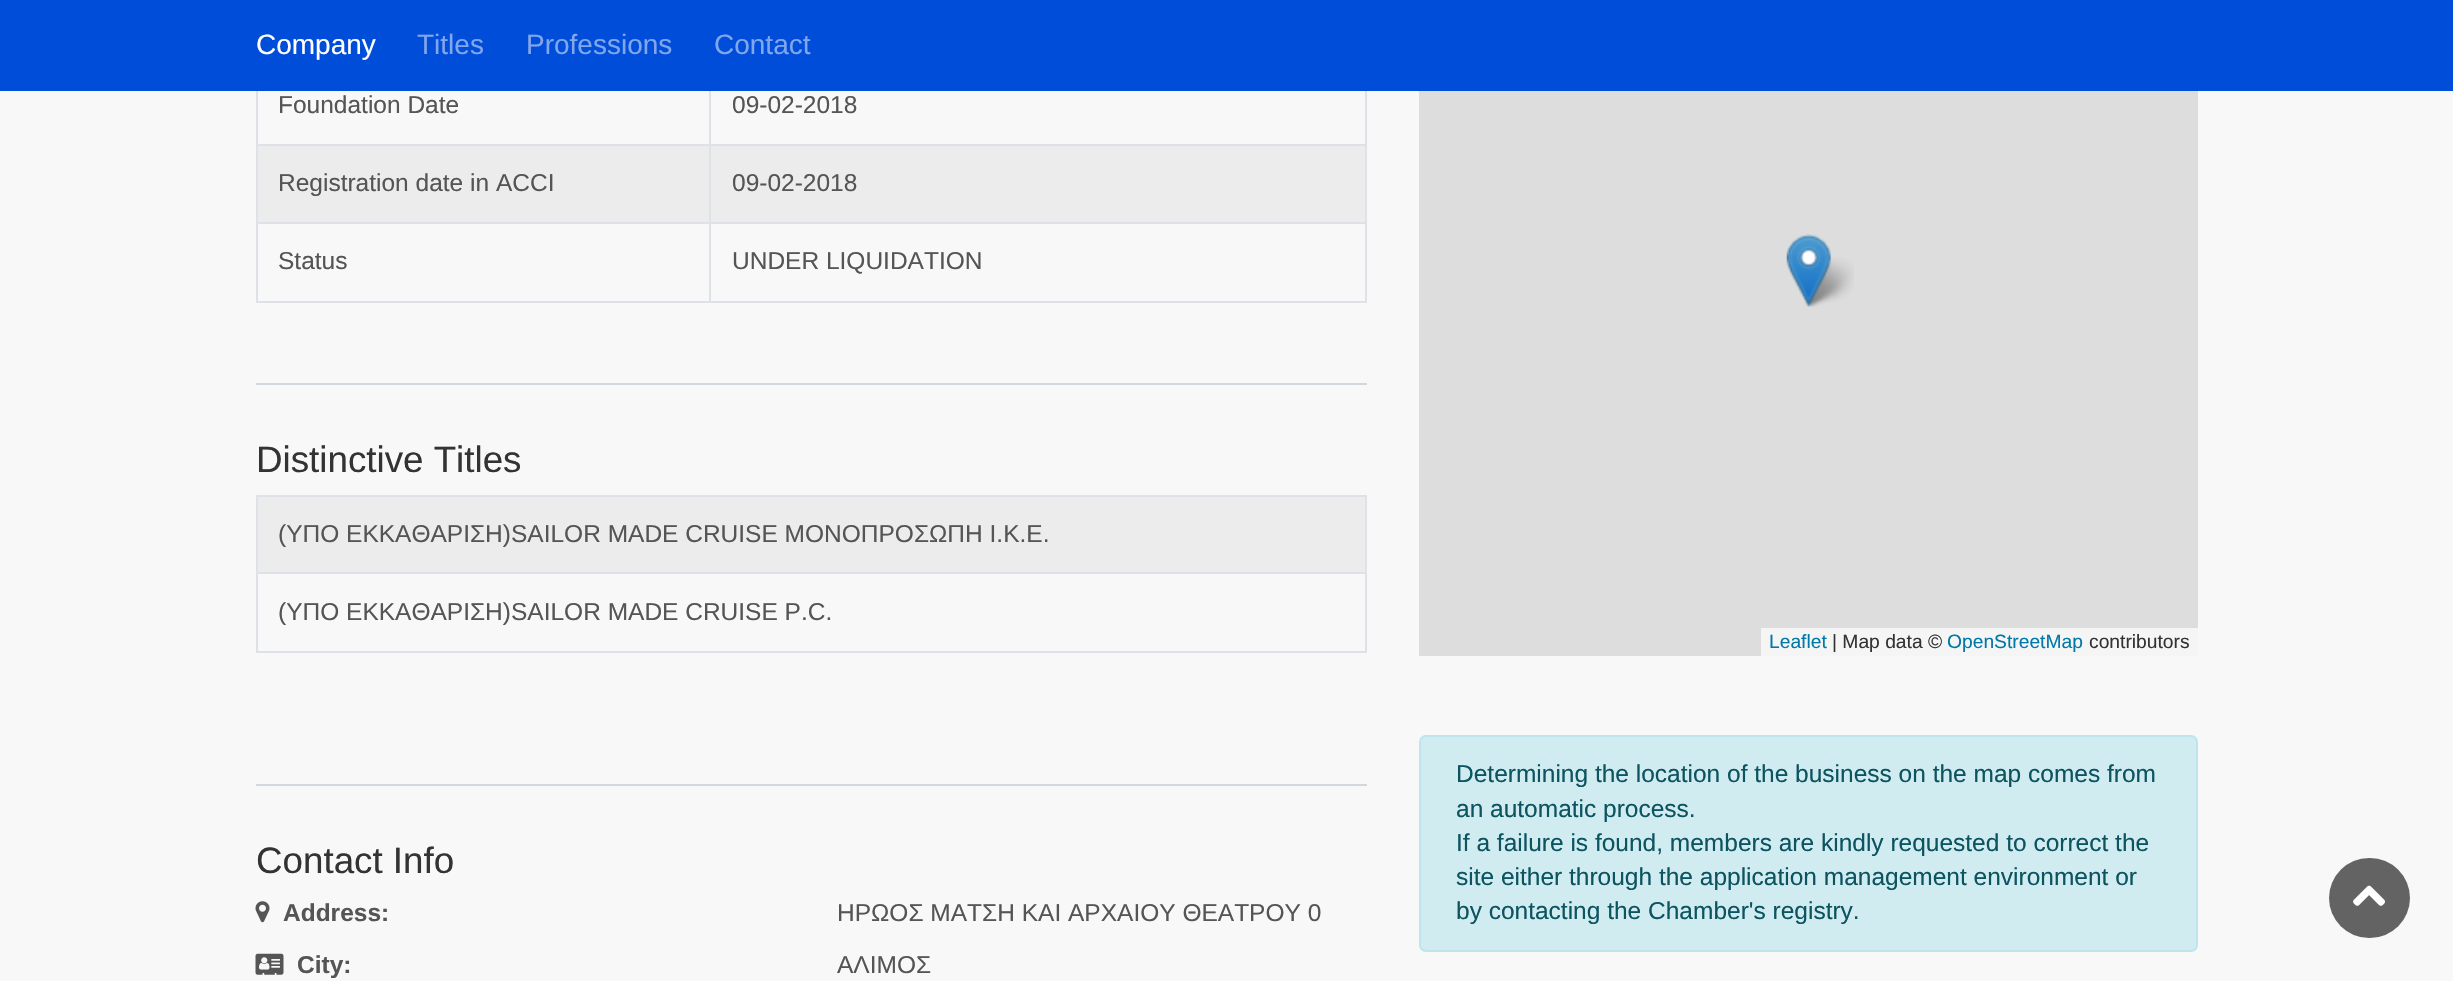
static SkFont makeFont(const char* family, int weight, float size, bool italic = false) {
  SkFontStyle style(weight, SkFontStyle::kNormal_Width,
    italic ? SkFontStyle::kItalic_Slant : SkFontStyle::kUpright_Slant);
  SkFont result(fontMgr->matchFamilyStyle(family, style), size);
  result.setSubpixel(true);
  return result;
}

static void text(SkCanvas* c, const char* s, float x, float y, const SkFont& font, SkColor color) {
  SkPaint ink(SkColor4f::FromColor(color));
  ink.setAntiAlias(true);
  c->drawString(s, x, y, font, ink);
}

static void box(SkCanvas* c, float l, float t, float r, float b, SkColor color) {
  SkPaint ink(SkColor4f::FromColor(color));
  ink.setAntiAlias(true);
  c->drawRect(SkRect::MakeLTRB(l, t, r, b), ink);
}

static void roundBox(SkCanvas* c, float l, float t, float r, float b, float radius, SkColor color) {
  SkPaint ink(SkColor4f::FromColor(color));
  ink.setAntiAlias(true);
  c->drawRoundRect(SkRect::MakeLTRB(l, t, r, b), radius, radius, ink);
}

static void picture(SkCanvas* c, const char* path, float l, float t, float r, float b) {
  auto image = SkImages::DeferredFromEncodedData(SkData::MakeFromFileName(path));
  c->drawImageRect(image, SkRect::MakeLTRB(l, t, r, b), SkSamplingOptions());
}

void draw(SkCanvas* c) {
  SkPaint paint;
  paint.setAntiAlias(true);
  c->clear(0xfff8f8f8);
  box(c, 0, 0, 2453, 91, 0xff004dda);
  SkFont face1 = makeFont("Liberation Sans", 400, 28);
  text(c, "Company", 256, 54, face1, 0xffffffff);
  text(c, "Titles", 417, 54, face1, 0xff80a6ed);
  text(c, "Professions", 526, 54, face1, 0xff80a6ed);
  text(c, "Contact", 714, 54, face1, 0xff80a6ed);
  SkFont face2 = makeFont("Liberation Sans", 400, 24.5f);
  text(c, "Foundation Date", 278, 113, face2, 0xff555555);
  box(c, 709, 144, 1367, 146, 0xffdee2e6);
  box(c, 258, 146, 1365, 222, 0xffececec);
  box(c, 709, 222, 1367, 224, 0xffdee2e6);
  box(c, 1365, 222, 1367, 303, 0xffdee2e6);
  box(c, 709, 301, 1367, 303, 0xffdee2e6);
  box(c, 709, 222, 711, 303, 0xffdee2e6);
  box(c, 256, 222, 711, 224, 0xffdee2e6);
  box(c, 709, 144, 711, 224, 0xffdee2e6);
  box(c, 256, 144, 711, 146, 0xffdee2e6);
  box(c, 709, 91, 711, 145, 0xffdee2e6);
  text(c, "09-02-2018", 732, 113, face2, 0xff555555);
  box(c, 256, 301, 711, 303, 0xffdee2e6);
  box(c, 256, 222, 258, 303, 0xffdee2e6);
  box(c, 256, 91, 258, 224, 0xffdee2e6);
  text(c, "Registration date in ACCI", 278, 191, face2, 0xff555555);
  box(c, 1365, 91, 1367, 224, 0xffdee2e6);
  text(c, "09-02-2018", 732, 191, face2, 0xff555555);
  text(c, "Status", 278, 269, face2, 0xff555555);
  text(c, "UNDER LIQUIDATION", 732, 269, face2, 0xff555555);
  box(c, 256, 383, 1367, 385, 0xffd2d8dd);
  SkFont face3 = makeFont("Liberation Sans", 400, 36.75f);
  text(c, "Distinctive Titles", 256, 472, face3, 0xff333333);
  box(c, 258, 497, 1365, 572, 0xffececec);
  box(c, 256, 495, 1367, 497, 0xffdee2e6);
  box(c, 256, 572, 1367, 574, 0xffdee2e6);
  box(c, 1365, 572, 1367, 653, 0xffdee2e6);
  box(c, 1365, 495, 1367, 574, 0xffdee2e6);
  box(c, 256, 651, 1367, 653, 0xffdee2e6);
  box(c, 256, 572, 258, 653, 0xffdee2e6);
  box(c, 256, 495, 258, 574, 0xffdee2e6);
  text(c, "(ΥΠΟ ΕΚΚΑΘΑΡΙΣΗ)SAILOR MADE CRUISE ΜΟΝΟΠΡΟΣΩΠΗ Ι.Κ.Ε.", 278, 542, face2, 0xff555555);
  text(c, "(ΥΠΟ ΕΚΚΑΘΑΡΙΣΗ)SAILOR MADE CRUISE P.C.", 278, 620, face2, 0xff555555);
  box(c, 256, 784, 1367, 786, 0xffd2d8dd);
  text(c, "Contact Info", 256, 873, face3, 0xff333333);
  picture(c, "img_01.png", 255, 901, 270, 923);
  SkFont face4 = makeFont("Liberation Sans", 700, 24.5f);
  text(c, "Address:", 283, 921, face4, 0xff555555);
  text(c, "ΗΡΩΟΣ ΜΑΤΣΗ ΚΑΙ ΑΡΧΑΙΟΥ ΘΕΑΤΡΟΥ 0", 837, 921, face2, 0xff555555);
  picture(c, "img_02.png", 255, 953, 284, 975);
  text(c, "City:", 297, 973, face4, 0xff555555);
  text(c, "ΑΛΙΜΟΣ", 837, 973, face2, 0xff555555);
  box(c, 1419, 91, 2198, 656, 0xffdddddd);
  picture(c, "img_04.png", 1802, 257, 1854, 307);
  picture(c, "img_03.png", 1786, 234, 1831, 307);
  box(c, 1761, 628, 2198, 656, 0xfff5f5f5);
  SkFont face5 = makeFont("Liberation Sans", 400, 19.25f);
  text(c, "Leaflet", 1769, 648, face5, 0xff0078a8);
  text(c, "| Map data ©", 1832, 648, face5, 0xff333333);
  text(c, "OpenStreetMap", 1947, 648, face5, 0xff0078a8);
  text(c, "contributors", 2089, 648, face5, 0xff333333);
  paint.setColor(0xffd1ecf1);
  c->drawRoundRect(SkRect::MakeLTRB(1420, 736, 2197, 951), 6, 6, paint);
  paint.setStyle(SkPaint::kStroke_Style);
  paint.setStrokeWidth(2);
  paint.setColor(0xffbee5eb);
  c->drawRoundRect(SkRect::MakeLTRB(1420, 736, 2197, 951), 6, 6, paint);
  text(c, "Determining the location of the business on the map comes from", 1456, 782, face2, 0xff0c5460);
  text(c, "an automatic process.", 1456, 817, face2, 0xff0c5460);
  text(c, "If a failure is found, members are kindly requested to correct the", 1456, 851, face2, 0xff0c5460);
  text(c, "site either through the application management environment or", 1456, 885, face2, 0xff0c5460);
  text(c, "by contacting the Chamber's registry.", 1456, 919, face2, 0xff0c5460);
  roundBox(c, 2329, 858, 2410, 938, 40, 0xff636363);
  picture(c, "img_05.png", 2353, 885, 2385, 906);
}
